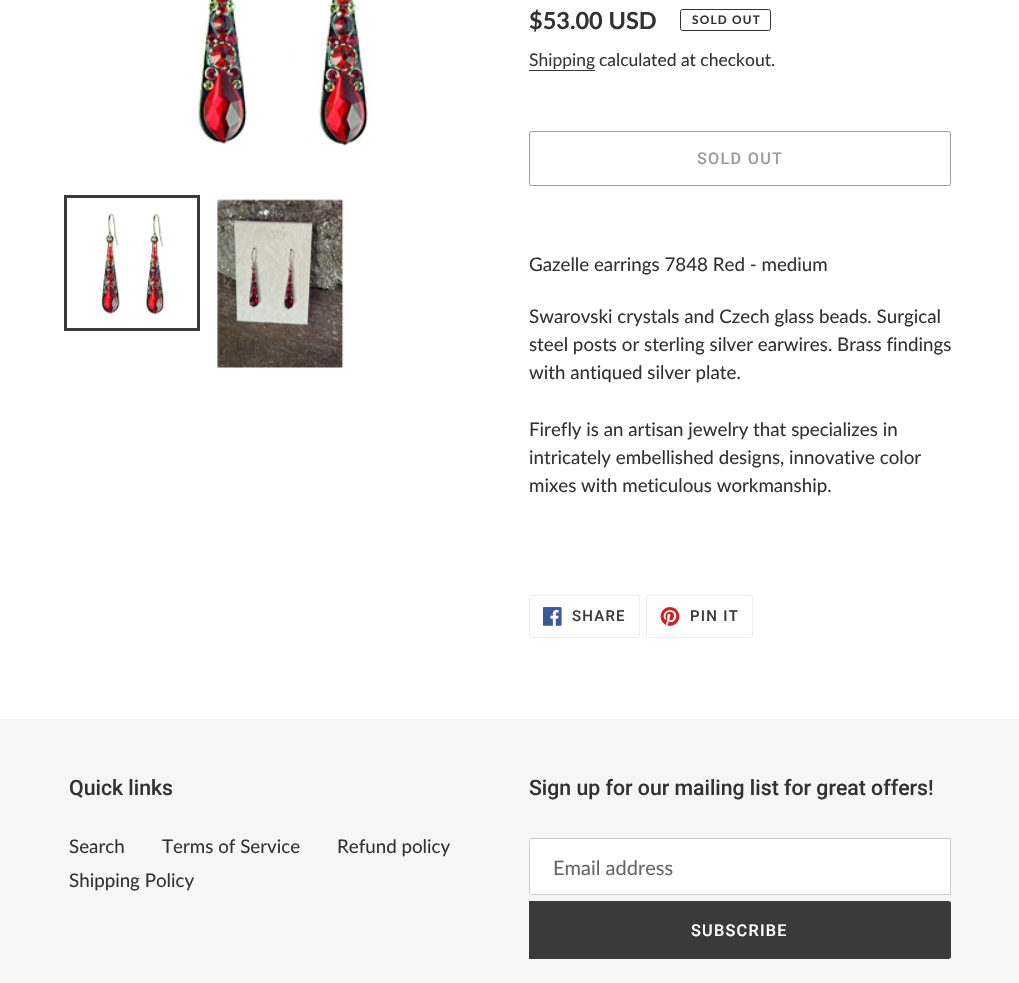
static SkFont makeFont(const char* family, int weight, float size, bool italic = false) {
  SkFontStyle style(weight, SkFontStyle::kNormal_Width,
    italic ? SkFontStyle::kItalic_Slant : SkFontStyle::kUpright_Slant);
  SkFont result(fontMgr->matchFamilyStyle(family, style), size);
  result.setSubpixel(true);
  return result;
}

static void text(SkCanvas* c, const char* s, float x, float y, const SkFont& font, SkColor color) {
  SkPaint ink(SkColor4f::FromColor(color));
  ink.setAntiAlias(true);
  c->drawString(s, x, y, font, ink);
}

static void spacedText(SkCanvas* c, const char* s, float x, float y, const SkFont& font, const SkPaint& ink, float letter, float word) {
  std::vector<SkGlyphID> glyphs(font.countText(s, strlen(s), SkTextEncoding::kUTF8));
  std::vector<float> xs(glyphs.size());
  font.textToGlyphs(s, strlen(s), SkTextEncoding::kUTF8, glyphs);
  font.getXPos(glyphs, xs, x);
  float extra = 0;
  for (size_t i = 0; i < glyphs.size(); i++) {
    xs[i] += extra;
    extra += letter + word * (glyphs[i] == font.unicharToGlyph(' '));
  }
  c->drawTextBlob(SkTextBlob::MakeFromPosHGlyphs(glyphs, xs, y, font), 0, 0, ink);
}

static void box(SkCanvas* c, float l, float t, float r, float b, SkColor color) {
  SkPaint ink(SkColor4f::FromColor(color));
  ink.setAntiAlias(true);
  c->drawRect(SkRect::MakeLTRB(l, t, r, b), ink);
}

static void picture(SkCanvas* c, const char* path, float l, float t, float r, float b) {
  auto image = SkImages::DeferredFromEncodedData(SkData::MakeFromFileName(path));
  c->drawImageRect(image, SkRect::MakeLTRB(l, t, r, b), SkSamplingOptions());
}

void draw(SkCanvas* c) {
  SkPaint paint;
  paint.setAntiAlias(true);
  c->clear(0xffffffff);
  picture(c, "img_01.png", 197, 0, 369, 146);
  paint.setStyle(SkPaint::kStroke_Style);
  paint.setStrokeWidth(3);
  paint.setColor(0xff3a3a3a);
  c->drawRect(SkRect::MakeLTRB(65.5f, 196.5f, 198.5f, 329.5f), paint);
  picture(c, "img_02.png", 101, 213, 165, 315);
  picture(c, "img_03.png", 217, 199, 344, 368);
  SkFont face1 = makeFont("Lato", 700, 23.5f);
  text(c, "$53.00 USD", 529, 29, face1, 0xff333232);
  paint.setStrokeWidth(1);
  paint.setColor(0xff333232);
  c->drawRoundRect(SkRect::MakeLTRB(680.5f, 9.5f, 770.5f, 30.5f), 2, 2, paint);
  SkFont face2 = makeFont("Lato", 700, 11.75f);
  paint.setStyle(SkPaint::kFill_Style);
  spacedText(c, "SOLD OUT", 692, 24, face2, paint, 1.25f, 0);
  SkFont face3 = makeFont("Lato", 400, 17.5f);
  text(c, "Shipping", 529, 66, face3, 0xff3a3a3a);
  box(c, 529, 70, 595, 71, 0xff3a3a3a);
  text(c, "calculated at checkout.", 599, 66, face3, 0xff333232);
  paint.setStyle(SkPaint::kStroke_Style);
  paint.setColor(0xff9d9d9d);
  c->drawRoundRect(SkRect::MakeLTRB(529.5f, 131.5f, 950.5f, 185.5f), 2, 2, paint);
  SkFont face4 = makeFont("Roboto", 500, 16.25f);
  paint.setStyle(SkPaint::kFill_Style);
  spacedText(c, "SOLD OUT", 697, 164, face4, paint, 1.25f, 0);
  SkFont face5 = makeFont("Lato", 400, 18.75f);
  text(c, "Gazelle earrings 7848 Red - medium", 529, 271, face5, 0xff333232);
  text(c, "Swarovski crystals and Czech glass beads. Surgical", 529, 323, face5, 0xff333232);
  text(c, "steel posts or sterling silver earwires. Brass findings", 529, 351, face5, 0xff333232);
  text(c, "with antiqued silver plate.", 529, 379, face5, 0xff333232);
  text(c, "Firefly is an artisan jewelry that specializes in", 529, 436, face5, 0xff333232);
  text(c, "intricately embellished designs, innovative color", 529, 464, face5, 0xff333232);
  text(c, "mixes with meticulous workmanship.", 529, 492, face5, 0xff333232);
  paint.setStyle(SkPaint::kStroke_Style);
  paint.setColor(0xffebebeb);
  c->drawRoundRect(SkRect::MakeLTRB(529.5f, 595.5f, 639.5f, 637.5f), 2, 2, paint);
  picture(c, "img_04.png", 543, 607, 562, 626);
  SkFont face6 = makeFont("Roboto", 500, 15);
  paint.setStyle(SkPaint::kFill_Style);
  paint.setColor(0xff3a3a3a);
  spacedText(c, "SHARE", 572, 621, face6, paint, 1.25f, 0);
  paint.setStyle(SkPaint::kStroke_Style);
  paint.setColor(0xffebebeb);
  c->drawRoundRect(SkRect::MakeLTRB(646.5f, 595.5f, 752.5f, 637.5f), 2, 2, paint);
  picture(c, "img_05.png", 660, 607, 680, 626);
  paint.setStyle(SkPaint::kFill_Style);
  paint.setColor(0xff3a3a3a);
  spacedText(c, "PIN IT", 690, 621, face6, paint, 1.25f, 0);
  box(c, 0, 719, 1019, 983, 0xfff6f6f6);
  SkFont face7 = makeFont("Roboto", 500, 21.25f);
  text(c, "Quick links", 69, 795, face7, 0xff333232);
  text(c, "Search", 69, 853, face5, 0xff333232);
  text(c, "Terms of Service", 162, 853, face5, 0xff333232);
  text(c, "Refund policy", 337, 853, face5, 0xff333232);
  text(c, "Shipping Policy", 69, 887, face5, 0xff333232);
  text(c, "Sign up for our mailing list for great offers!", 529, 795, face7, 0xff333232);
  paint.setColor(0xffffffff);
  c->drawPath(SkPathBuilder().moveTo(531.5f, 838.5f).lineTo(950.5f, 838.5f).lineTo(950.5f, 894.5f).lineTo(531.5f, 894.5f).cubicTo(530.5f, 894.5f, 529.5f, 893.5f, 529.5f, 892.5f).lineTo(529.5f, 840.5f).cubicTo(529.5f, 839.5f, 530.5f, 838.5f, 531.5f, 838.5f).close().detach(), paint);
  paint.setStyle(SkPaint::kStroke_Style);
  paint.setColor(0xffcccccc);
  c->drawPath(SkPathBuilder().moveTo(531.5f, 838.5f).lineTo(950.5f, 838.5f).lineTo(950.5f, 894.5f).lineTo(531.5f, 894.5f).cubicTo(530.5f, 894.5f, 529.5f, 893.5f, 529.5f, 892.5f).lineTo(529.5f, 840.5f).cubicTo(529.5f, 839.5f, 530.5f, 838.5f, 531.5f, 838.5f).close().detach(), paint);
  SkFont face8 = makeFont("Lato", 400, 20);
  text(c, "Email address", 553, 875, face8, 0xff666666);
  paint.setStyle(SkPaint::kFill_Style);
  paint.setColor(0xff3a3a3a);
  c->drawPath(SkPathBuilder().moveTo(529, 901).lineTo(948.5f, 901).cubicTo(950, 901, 951, 902, 951, 903.5f).lineTo(951, 956.5f).cubicTo(951, 958, 950, 959, 948.5f, 959).lineTo(529, 959).close().detach(), paint);
  paint.setColor(0xffffffff);
  spacedText(c, "SUBSCRIBE", 691, 936, face4, paint, 1.25f, 0);
}
